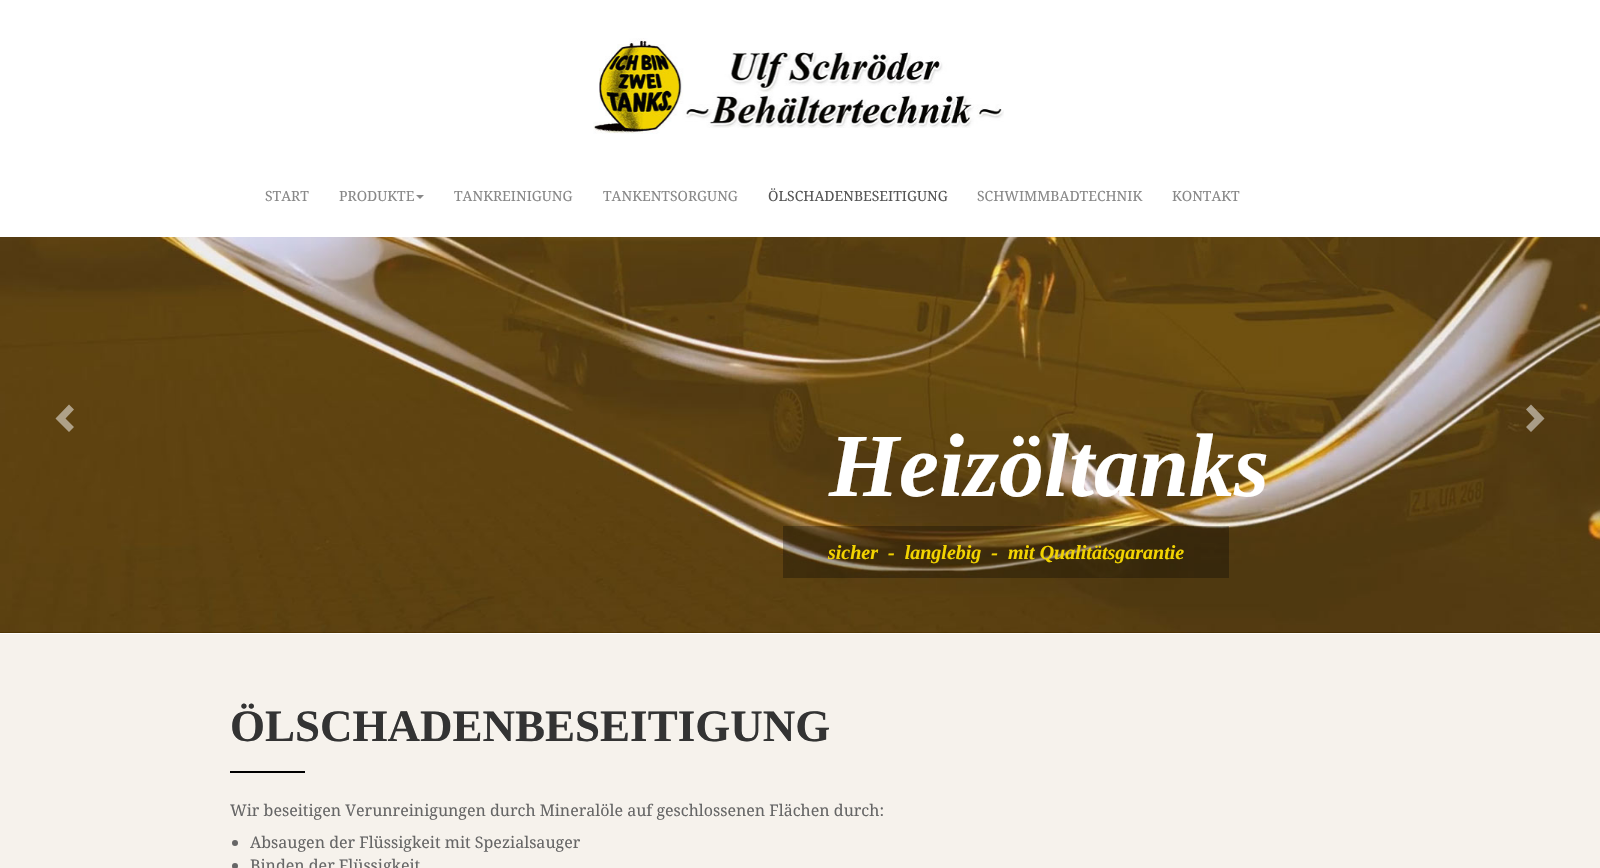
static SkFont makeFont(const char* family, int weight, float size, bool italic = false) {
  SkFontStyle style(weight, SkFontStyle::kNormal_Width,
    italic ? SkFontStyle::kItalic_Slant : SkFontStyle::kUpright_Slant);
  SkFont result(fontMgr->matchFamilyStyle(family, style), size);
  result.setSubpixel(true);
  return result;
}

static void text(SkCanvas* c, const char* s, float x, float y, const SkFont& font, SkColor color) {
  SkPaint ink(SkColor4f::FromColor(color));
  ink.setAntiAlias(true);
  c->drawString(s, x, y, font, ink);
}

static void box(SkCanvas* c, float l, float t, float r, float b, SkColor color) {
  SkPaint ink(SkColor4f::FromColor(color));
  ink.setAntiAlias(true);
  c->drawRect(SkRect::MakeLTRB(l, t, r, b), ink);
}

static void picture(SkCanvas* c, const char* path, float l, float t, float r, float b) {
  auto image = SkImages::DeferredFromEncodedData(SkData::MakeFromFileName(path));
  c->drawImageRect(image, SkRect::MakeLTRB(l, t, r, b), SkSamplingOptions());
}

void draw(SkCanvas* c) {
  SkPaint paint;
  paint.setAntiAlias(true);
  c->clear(0xffffffff);
  picture(c, "img_01.png", 593, 38, 1004, 134);
  SkFont face1 = makeFont("Noto Serif", 400, 14);
  text(c, "START", 265, 201, face1, 0xff888888);
  text(c, "PRODUKTE", 339, 201, face1, 0xff888888);
  paint.setColor(0xff888888);
  c->drawPath(SkPathBuilder().moveTo(416, 195).lineTo(424, 195).lineTo(420, 199).close().detach(), paint);
  text(c, "TANKREINIGUNG", 454, 201, face1, 0xff888888);
  text(c, "TANKENTSORGUNG", 603, 201, face1, 0xff888888);
  text(c, "ÖLSCHADENBESEITIGUNG", 768, 201, face1, 0xff555555);
  text(c, "SCHWIMMBADTECHNIK", 977, 201, face1, 0xff888888);
  text(c, "KONTAKT", 1172, 201, face1, 0xff888888);
  picture(c, "img_02.png", 0, 237, 1600, 633);
  paint.setColor(0xffafa188);
  c->drawPath(SkPathBuilder().moveTo(74, 409.5f).lineTo(65.5f, 418.5f).lineTo(74, 427).lineTo(69, 432).lineTo(55.5f, 418.5f).lineTo(69, 404.5f).close().detach(), paint);
  paint.setColor(0x80ffffff);
  c->drawPath(SkPathBuilder().moveTo(1544.5f, 418.5f).lineTo(1531, 432).lineTo(1526, 427).lineTo(1534.5f, 418.5f).lineTo(1526, 409.5f).lineTo(1531, 404.5f).close().detach(), paint);
  SkFont face2 = makeFont("Liberation Serif", 700, 90, true);
  text(c, "Heizöltanks", 829, 496, face2, 0xffffffff);
  box(c, 783, 526, 1229, 578, 0x4d000000);
  SkFont face3 = makeFont("Liberation Serif", 700, 20, true);
  text(c, "sicher  -  langlebig  -  mit Qualitätsgarantie", 828, 559, face3, 0xfff2d300);
  box(c, 0, 634, 1600, 868, 0xfff6f2ec);
  SkFont face4 = makeFont("Liberation Serif", 700, 45);
  text(c, "ÖLSCHADENBESEITIGUNG", 230, 741, face4, 0xff333333);
  box(c, 230, 771, 305, 773, 0xff000000);
  SkFont face5 = makeFont("Noto Serif", 400, 16);
  text(c, "Wir beseitigen Verunreinigungen durch Mineralöle auf geschlossenen Flächen durch:", 230, 816, face5, 0xff666666);
  paint.setColor(0xff666666);
  c->drawCircle(235, 843, 3, paint);
  text(c, "Absaugen der Flüssigkeit mit Spezialsauger", 250, 848, face5, 0xff666666);
  c->drawCircle(235, 866, 3, paint);
  text(c, "Binden der Flüssigkeit", 250, 871, face5, 0xff666666);
}
